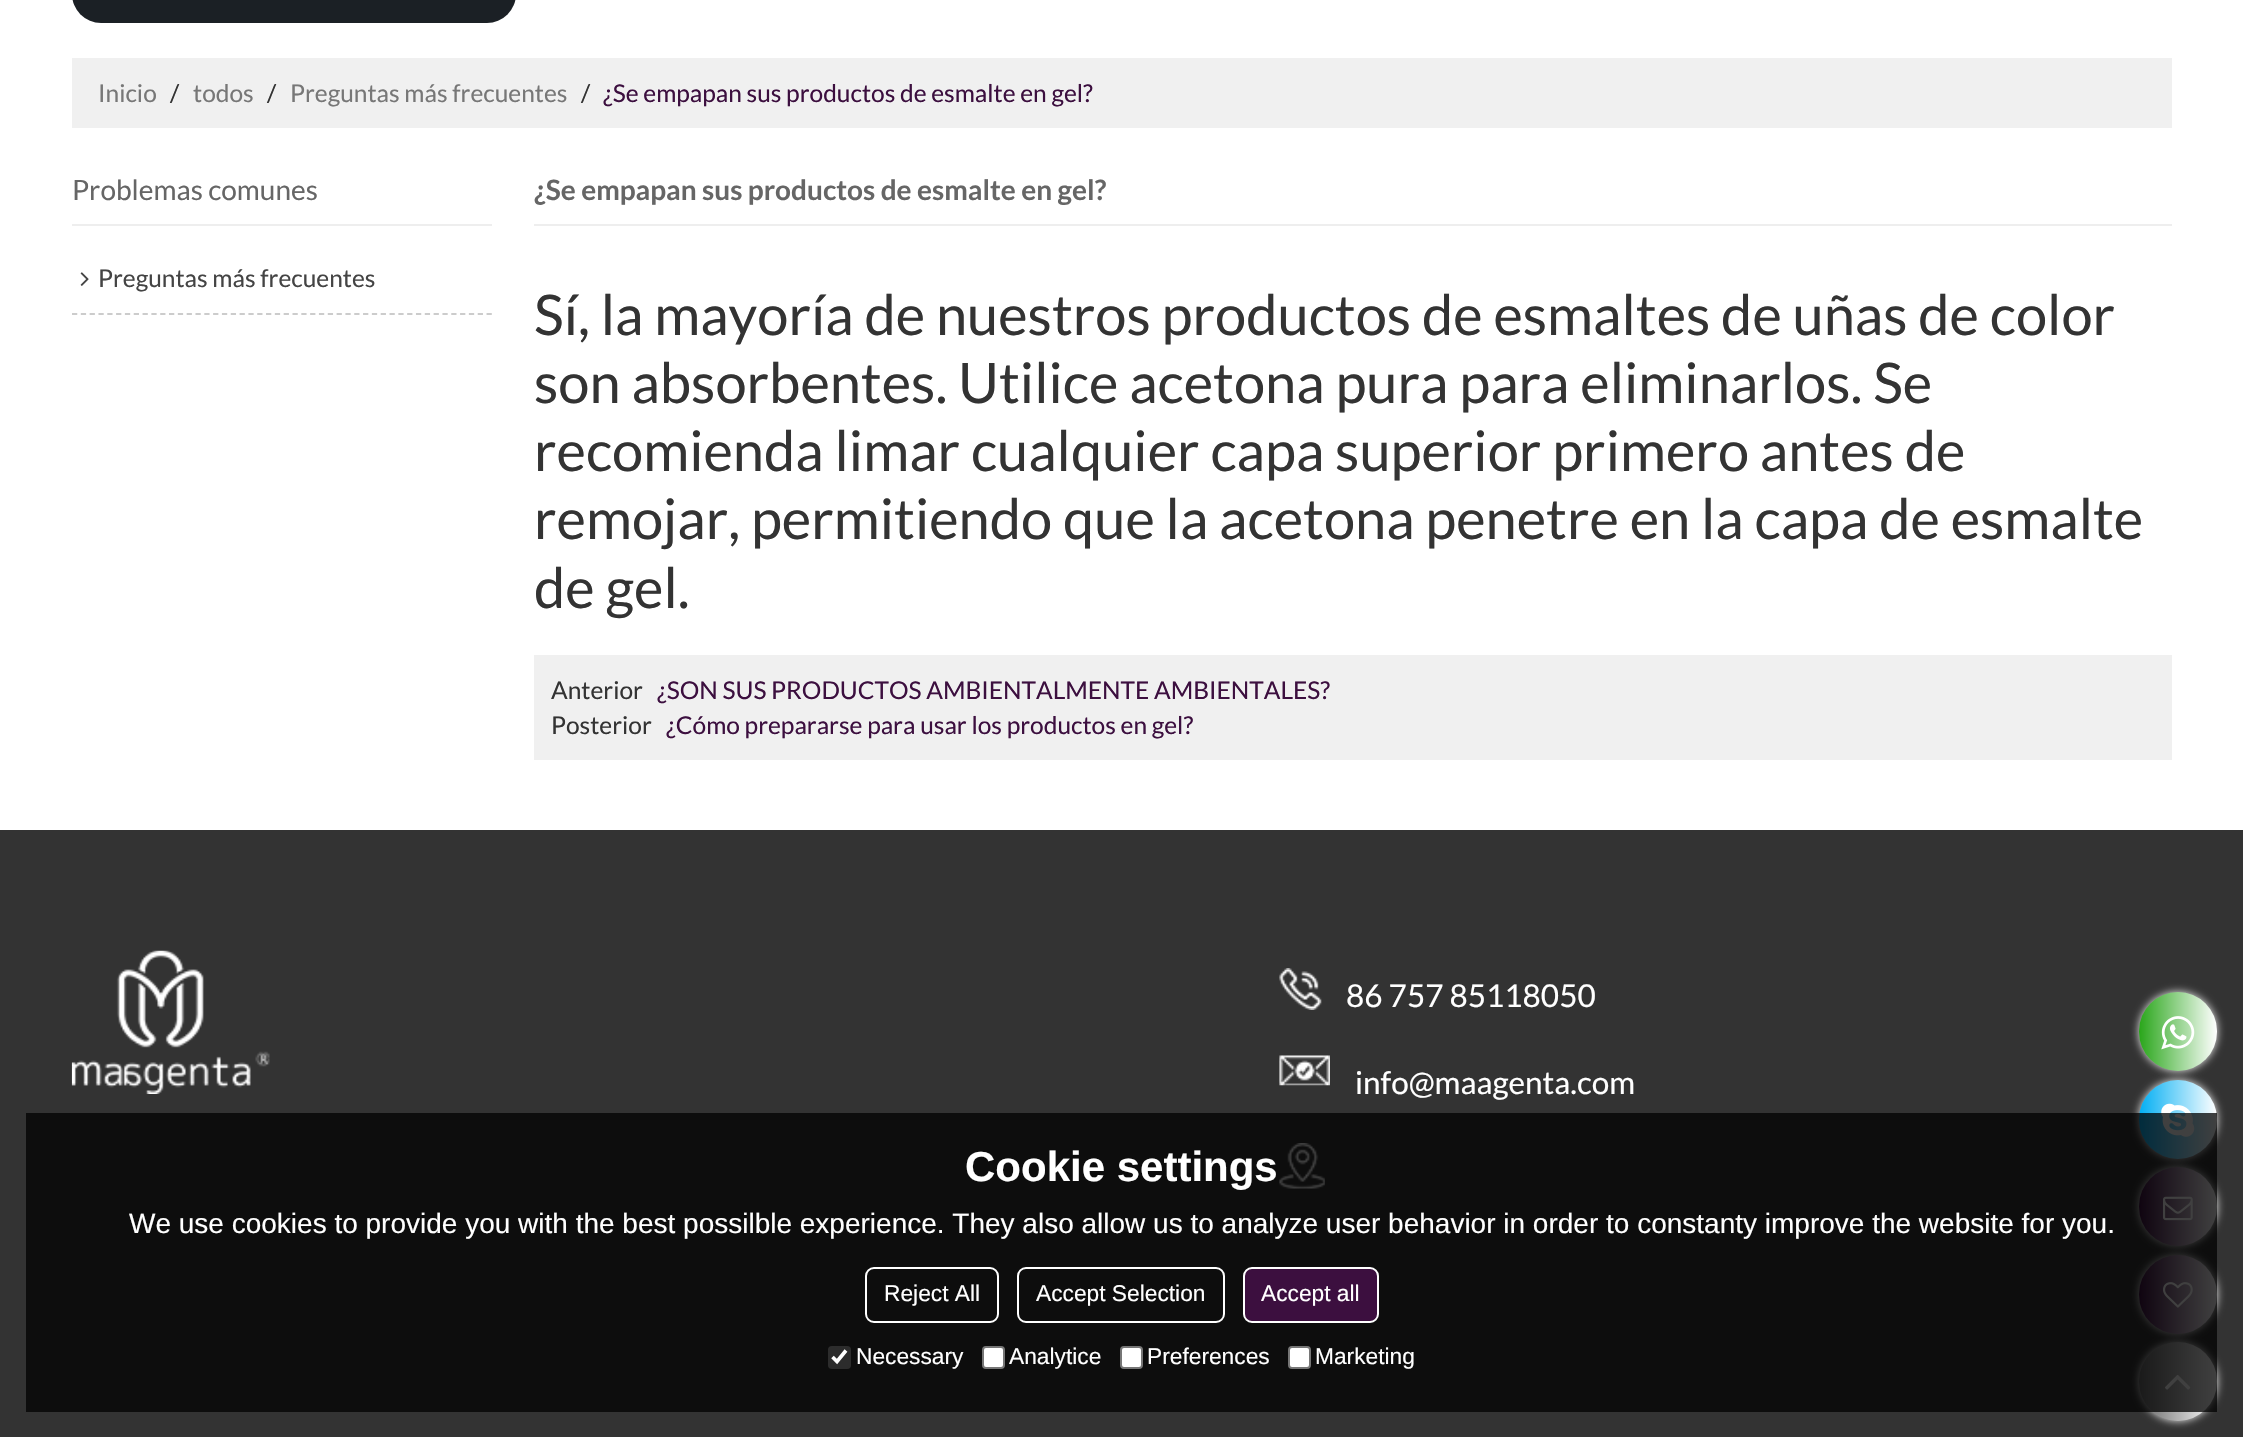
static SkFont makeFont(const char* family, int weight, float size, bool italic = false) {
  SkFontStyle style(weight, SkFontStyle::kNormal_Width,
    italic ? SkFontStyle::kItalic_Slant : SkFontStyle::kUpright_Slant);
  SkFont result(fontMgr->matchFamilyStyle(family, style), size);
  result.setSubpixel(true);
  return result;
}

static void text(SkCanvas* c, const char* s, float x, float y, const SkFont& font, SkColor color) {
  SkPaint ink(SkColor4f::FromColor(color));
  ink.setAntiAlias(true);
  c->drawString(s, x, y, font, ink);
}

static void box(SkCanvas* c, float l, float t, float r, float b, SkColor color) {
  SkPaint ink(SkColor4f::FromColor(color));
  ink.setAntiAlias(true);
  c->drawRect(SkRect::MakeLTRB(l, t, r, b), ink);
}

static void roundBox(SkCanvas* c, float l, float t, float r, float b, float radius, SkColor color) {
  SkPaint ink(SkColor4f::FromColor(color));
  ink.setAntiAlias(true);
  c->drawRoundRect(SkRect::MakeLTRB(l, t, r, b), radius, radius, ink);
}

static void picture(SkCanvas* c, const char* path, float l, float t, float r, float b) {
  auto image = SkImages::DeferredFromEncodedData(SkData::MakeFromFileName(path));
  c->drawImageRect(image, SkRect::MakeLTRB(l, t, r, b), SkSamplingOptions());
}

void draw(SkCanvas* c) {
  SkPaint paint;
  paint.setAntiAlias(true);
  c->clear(0xffffffff);
  roundBox(c, 72, -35, 516, 23, 35, 0xff1b2025);
  box(c, 72, 58, 2172, 128, 0xfff0f0f0);
  SkFont face1 = makeFont("Lato", 400, 24.5f);
  text(c, "Inicio", 98, 102, face1, 0xff777777);
  text(c, "/", 170, 102, face1, 0xff333333);
  text(c, "todos", 193, 102, face1, 0xff777777);
  text(c, "/", 267, 102, face1, 0xff333333);
  text(c, "Preguntas más frecuentes", 290, 102, face1, 0xff777777);
  text(c, "/", 581, 102, face1, 0xff333333);
  text(c, "¿Se empapan sus productos de esmalte en gel?", 603, 102, face1, 0xff3c0f3f);
  box(c, 72, 224, 492, 226, 0xffeeeeee);
  SkFont face2 = makeFont("Lato", 400, 28);
  text(c, "Problemas comunes", 72, 200, face2, 0xff666666);
  paint.setStyle(SkPaint::kStroke_Style);
  paint.setStrokeWidth(1.8f);
  paint.setColor(0xffcccccc);
  paint.setPathEffect(SkDashPathEffect::Make({{5.25f, 3.57f}}, 0));
  c->drawPath(SkPathBuilder().moveTo(72, 314).lineTo(492, 314).detach(), paint);
  paint.setPathEffect(nullptr);
  picture(c, "img_01.png", 80, 272, 89, 286);
  text(c, "Preguntas más frecuentes", 98, 287, face1, 0xff444444);
  box(c, 534, 224, 2172, 226, 0xffeeeeee);
  SkFont face3 = makeFont("Lato", 700, 28);
  text(c, "¿Se empapan sus productos de esmalte en gel?", 534, 200, face3, 0xff666666);
  SkFont face4 = makeFont("Lato", 400, 56);
  text(c, "Sí, la mayoría de nuestros productos de esmaltes de uñas de color", 534, 335, face4, 0xff333333);
  text(c, "son absorbentes. Utilice acetona pura para eliminarlos. Se", 534, 403, face4, 0xff333333);
  text(c, "recomienda limar cualquier capa superior primero antes de", 534, 471, face4, 0xff333333);
  text(c, "remojar, permitiendo que la acetona penetre en la capa de esmalte", 534, 539, face4, 0xff333333);
  text(c, "de gel.", 534, 608, face4, 0xff333333);
  box(c, 534, 655, 2172, 760, 0xfff0f0f0);
  text(c, "Anterior", 551, 699, face1, 0xff333333);
  text(c, "¿SON SUS PRODUCTOS AMBIENTALMENTE AMBIENTALES?", 657, 699, face1, 0xff3c0f3f);
  text(c, "Posterior", 551, 734, face1, 0xff333333);
  text(c, "¿Cómo prepararse para usar los productos en gel?", 666, 734, face1, 0xff3c0f3f);
  box(c, 0, 830, 2243, 1437, 0xff333333);
  picture(c, "img_02.png", 71, 950, 270, 1094);
  picture(c, "img_03.png", 1279, 968, 1322, 1010);
  SkFont face5 = makeFont("Lato", 400, 31.5f);
  text(c, "86 757 85118050", 1346, 1007, face5, 0xffffffff);
  picture(c, "img_04.png", 1279, 1055, 1330, 1086);
  text(c, "info@maagenta.com", 1355, 1094, face5, 0xffffffff);
  picture(c, "img_05.png", 1279, 1143, 1325, 1189);
  paint.setStyle(SkPaint::kFill_Style);
  paint.setColor(0xffeeeeee);
  paint.setMaskFilter(SkMaskFilter::MakeBlur(kNormal_SkBlurStyle, 4.5f));
  c->drawRoundRect(SkRect::MakeLTRB(2139, 992, 2217, 1071), 39, 39, paint);
  paint.setMaskFilter(nullptr);
  {
    const SkColor colors[] = {0xff29a61a, 0xffffffff};
    const float stops[] = {0, 1};
    const SkPoint ends[] = {{2139, 1032}, {2217, 1032}};
    paint.setShader(SkGradientShader::MakeLinear(ends, colors, stops, 2, SkTileMode::kClamp));
    paint.setAlpha(255);
  }
  c->drawRoundRect(SkRect::MakeLTRB(2139, 992, 2217, 1071), 39, 39, paint);
  paint.setShader(nullptr);
  paint.setColor(0xffeeeeee);
  paint.setMaskFilter(SkMaskFilter::MakeBlur(kNormal_SkBlurStyle, 4.5f));
  c->drawRoundRect(SkRect::MakeLTRB(2139, 1080, 2217, 1159), 39, 39, paint);
  paint.setMaskFilter(nullptr);
  {
    const SkColor colors[] = {0xff01aef3, 0xffffffff};
    const float stops[] = {0, 1};
    const SkPoint ends[] = {{2139, 1119}, {2217, 1119}};
    paint.setShader(SkGradientShader::MakeLinear(ends, colors, stops, 2, SkTileMode::kClamp));
    paint.setAlpha(255);
  }
  c->drawRoundRect(SkRect::MakeLTRB(2139, 1080, 2217, 1159), 39, 39, paint);
  picture(c, "img_07.png", 2161, 1103, 2195, 1137);
  paint.setShader(nullptr);
  paint.setColor(0xffeeeeee);
  paint.setMaskFilter(SkMaskFilter::MakeBlur(kNormal_SkBlurStyle, 4.5f));
  c->drawRoundRect(SkRect::MakeLTRB(2139, 1167, 2217, 1246), 39, 39, paint);
  paint.setMaskFilter(nullptr);
  {
    const SkColor colors[] = {0xff3c0f3f, 0xffffffff};
    const float stops[] = {0, 1};
    const SkPoint ends[] = {{2139, 1207}, {2217, 1207}};
    paint.setShader(SkGradientShader::MakeLinear(ends, colors, stops, 2, SkTileMode::kClamp));
    paint.setAlpha(255);
  }
  c->drawRoundRect(SkRect::MakeLTRB(2139, 1167, 2217, 1246), 39, 39, paint);
  picture(c, "img_08.png", 2163, 1196, 2193, 1221);
  paint.setShader(nullptr);
  paint.setColor(0xffeeeeee);
  paint.setMaskFilter(SkMaskFilter::MakeBlur(kNormal_SkBlurStyle, 4.5f));
  c->drawRoundRect(SkRect::MakeLTRB(2139, 1255, 2217, 1334), 39, 39, paint);
  paint.setMaskFilter(nullptr);
  {
    const SkColor colors[] = {0xff3c0f3f, 0xffffffff};
    const float stops[] = {0, 1};
    const SkPoint ends[] = {{2139, 1294}, {2217, 1294}};
    paint.setShader(SkGradientShader::MakeLinear(ends, colors, stops, 2, SkTileMode::kClamp));
    paint.setAlpha(255);
  }
  c->drawRoundRect(SkRect::MakeLTRB(2139, 1255, 2217, 1334), 39, 39, paint);
  picture(c, "img_09.png", 2163, 1282, 2193, 1308);
  paint.setShader(nullptr);
  paint.setColor(0xffeeeeee);
  paint.setMaskFilter(SkMaskFilter::MakeBlur(kNormal_SkBlurStyle, 4.5f));
  c->drawRoundRect(SkRect::MakeLTRB(2139, 1342, 2217, 1421), 39, 39, paint);
  paint.setMaskFilter(nullptr);
  {
    const SkColor colors[] = {0xff666666, 0xffffffff};
    const float stops[] = {0, 1};
    const SkPoint ends[] = {{2139, 1382}, {2217, 1382}};
    paint.setShader(SkGradientShader::MakeLinear(ends, colors, stops, 2, SkTileMode::kClamp));
    paint.setAlpha(255);
  }
  c->drawRoundRect(SkRect::MakeLTRB(2139, 1342, 2217, 1421), 39, 39, paint);
  picture(c, "img_10.png", 2165, 1375, 2191, 1390);
  box(c, 26, 1113, 2217, 1412, 0xbf000000);
  SkFont face6 = makeFont("Liberation Sans", 700, 42);
  text(c, "Cookie settings", 965, 1181, face6, 0xffffffff);
  SkFont face7 = makeFont("Liberation Sans", 400, 28);
  text(c, "We use cookies to provide you with the best possilble experience. They also allow us to analyze user behavior in order to constanty improve the website for you.", 129, 1233, face7, 0xffffffff);
  paint.setStyle(SkPaint::kStroke_Style);
  paint.setStrokeWidth(2);
  paint.setShader(nullptr);
  paint.setColor(0xffffffff);
  c->drawRoundRect(SkRect::MakeLTRB(866, 1268, 998, 1322), 8, 8, paint);
  SkFont face8 = makeFont("Liberation Sans", 400, 22.75f);
  text(c, "Reject All", 884, 1301, face8, 0xffffffff);
  c->drawRoundRect(SkRect::MakeLTRB(1018, 1268, 1224, 1322), 8, 8, paint);
  text(c, "Accept Selection", 1036, 1301, face8, 0xffffffff);
  paint.setStyle(SkPaint::kFill_Style);
  paint.setColor(0xff3c0f3f);
  c->drawRoundRect(SkRect::MakeLTRB(1244, 1268, 1378, 1322), 8, 8, paint);
  paint.setStyle(SkPaint::kStroke_Style);
  paint.setColor(0xffffffff);
  c->drawRoundRect(SkRect::MakeLTRB(1244, 1268, 1378, 1322), 8, 8, paint);
  text(c, "Accept all", 1261, 1301, face8, 0xffffffff);
  roundBox(c, 828, 1346, 851, 1369, 4, 0xff2c2c2c);
  paint.setStrokeWidth(3.6f);
  c->drawPath(SkPathBuilder().moveTo(832.5f, 1357).lineTo(837, 1361.5f).lineTo(846, 1350.5f).detach(), paint);
  text(c, "Necessary", 856, 1364, face8, 0xffffffff);
  paint.setStyle(SkPaint::kFill_Style);
  c->drawRoundRect(SkRect::MakeLTRB(983, 1347, 1004, 1368), 3, 3, paint);
  paint.setStyle(SkPaint::kStroke_Style);
  paint.setStrokeWidth(2);
  paint.setColor(0xff767676);
  c->drawRoundRect(SkRect::MakeLTRB(983, 1347, 1004, 1368), 3, 3, paint);
  text(c, "Analytice", 1009, 1364, face8, 0xffffffff);
  paint.setStyle(SkPaint::kFill_Style);
  paint.setColor(0xffffffff);
  c->drawRoundRect(SkRect::MakeLTRB(1121, 1347, 1142, 1368), 3, 3, paint);
  paint.setStyle(SkPaint::kStroke_Style);
  paint.setColor(0xff767676);
  c->drawRoundRect(SkRect::MakeLTRB(1121, 1347, 1142, 1368), 3, 3, paint);
  text(c, "Preferences", 1147, 1364, face8, 0xffffffff);
  paint.setStyle(SkPaint::kFill_Style);
  paint.setColor(0xffffffff);
  c->drawRoundRect(SkRect::MakeLTRB(1289, 1347, 1310, 1368), 3, 3, paint);
  paint.setStyle(SkPaint::kStroke_Style);
  paint.setColor(0xff767676);
  c->drawRoundRect(SkRect::MakeLTRB(1289, 1347, 1310, 1368), 3, 3, paint);
  text(c, "Marketing", 1315, 1364, face8, 0xffffffff);
  picture(c, "img_06.png", 2161, 1016, 2195, 1050);
}
